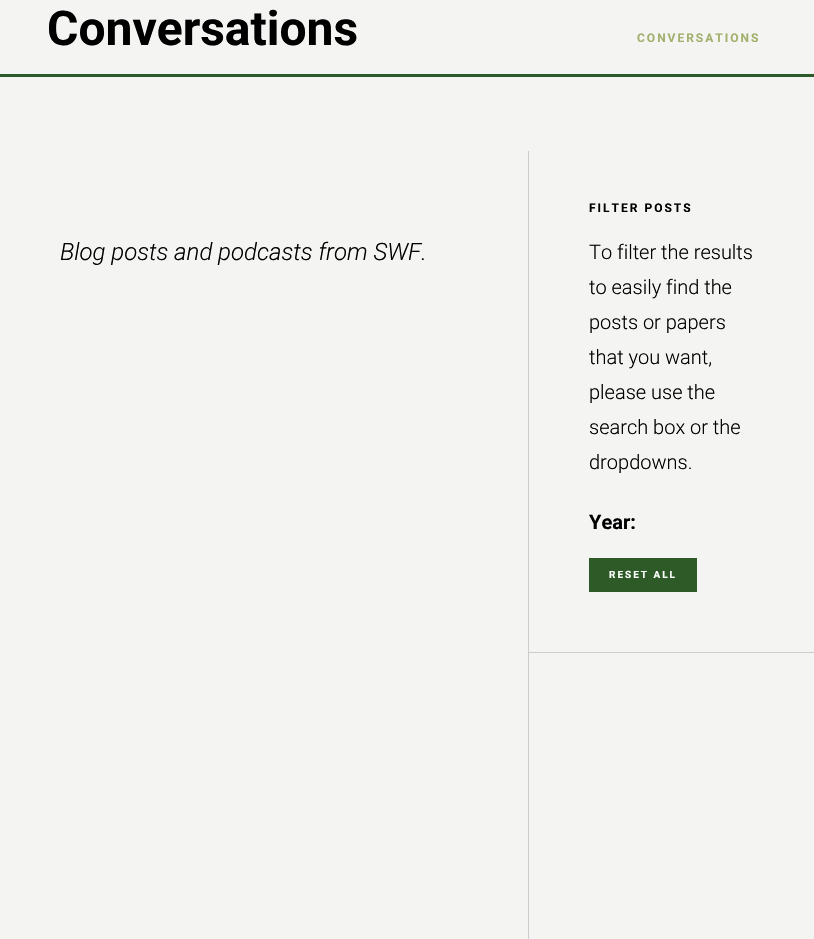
static SkFont makeFont(const char* family, int weight, float size, bool italic = false) {
  SkFontStyle style(weight, SkFontStyle::kNormal_Width,
    italic ? SkFontStyle::kItalic_Slant : SkFontStyle::kUpright_Slant);
  SkFont result(fontMgr->matchFamilyStyle(family, style), size);
  result.setSubpixel(true);
  return result;
}

static void text(SkCanvas* c, const char* s, float x, float y, const SkFont& font, SkColor color) {
  SkPaint ink(SkColor4f::FromColor(color));
  ink.setAntiAlias(true);
  c->drawString(s, x, y, font, ink);
}

static void spacedText(SkCanvas* c, const char* s, float x, float y, const SkFont& font, const SkPaint& ink, float letter, float word) {
  std::vector<SkGlyphID> glyphs(font.countText(s, strlen(s), SkTextEncoding::kUTF8));
  std::vector<float> xs(glyphs.size());
  font.textToGlyphs(s, strlen(s), SkTextEncoding::kUTF8, glyphs);
  font.getXPos(glyphs, xs, x);
  float extra = 0;
  for (size_t i = 0; i < glyphs.size(); i++) {
    xs[i] += extra;
    extra += letter + word * (glyphs[i] == font.unicharToGlyph(' '));
  }
  c->drawTextBlob(SkTextBlob::MakeFromPosHGlyphs(glyphs, xs, y, font), 0, 0, ink);
}

static void box(SkCanvas* c, float l, float t, float r, float b, SkColor color) {
  SkPaint ink(SkColor4f::FromColor(color));
  ink.setAntiAlias(true);
  c->drawRect(SkRect::MakeLTRB(l, t, r, b), ink);
}

void draw(SkCanvas* c) {
  SkPaint paint;
  paint.setAntiAlias(true);
  c->clear(0xfff4f5f3);
  SkFont face1 = makeFont("Roboto", 700, 48);
  text(c, "Conversations", 47, 45, face1, 0xff000000);
  box(c, 0, 74, 814, 77, 0xff2d5a27);
  SkFont face2 = makeFont("Roboto", 700, 12);
  paint.setColor(0xffa2b06d);
  spacedText(c, "CONVERSATIONS", 637, 42, face2, paint, 2, 0);
  box(c, 528, 151, 529, 939, 0xffcccccc);
  SkFont face3 = makeFont("Roboto", 300, 24, true);
  text(c, "Blog posts and podcasts from SWF.", 60, 260, face3, 0xff000000);
  box(c, 529, 652, 814, 653, 0xffcccccc);
  paint.setColor(0xff000000);
  spacedText(c, "FILTER POSTS", 589, 212, face2, paint, 2, 0);
  SkFont face4 = makeFont("Roboto", 300, 20);
  text(c, "To filter the results", 589, 259, face4, 0xff000000);
  text(c, "to easily find the", 589, 294, face4, 0xff000000);
  text(c, "posts or papers", 589, 329, face4, 0xff000000);
  text(c, "that you want,", 589, 364, face4, 0xff000000);
  text(c, "please use the", 589, 399, face4, 0xff000000);
  text(c, "search box or the", 589, 434, face4, 0xff000000);
  text(c, "dropdowns.", 589, 469, face4, 0xff000000);
  SkFont face5 = makeFont("Roboto", 700, 20);
  text(c, "Year:", 589, 529, face5, 0xff000000);
  box(c, 589, 558, 697, 592, 0xff2d5a27);
  SkFont face6 = makeFont("Roboto", 700, 10);
  paint.setColor(0xffffffff);
  spacedText(c, "RESET ALL", 609, 578, face6, paint, 2, 0);
}
